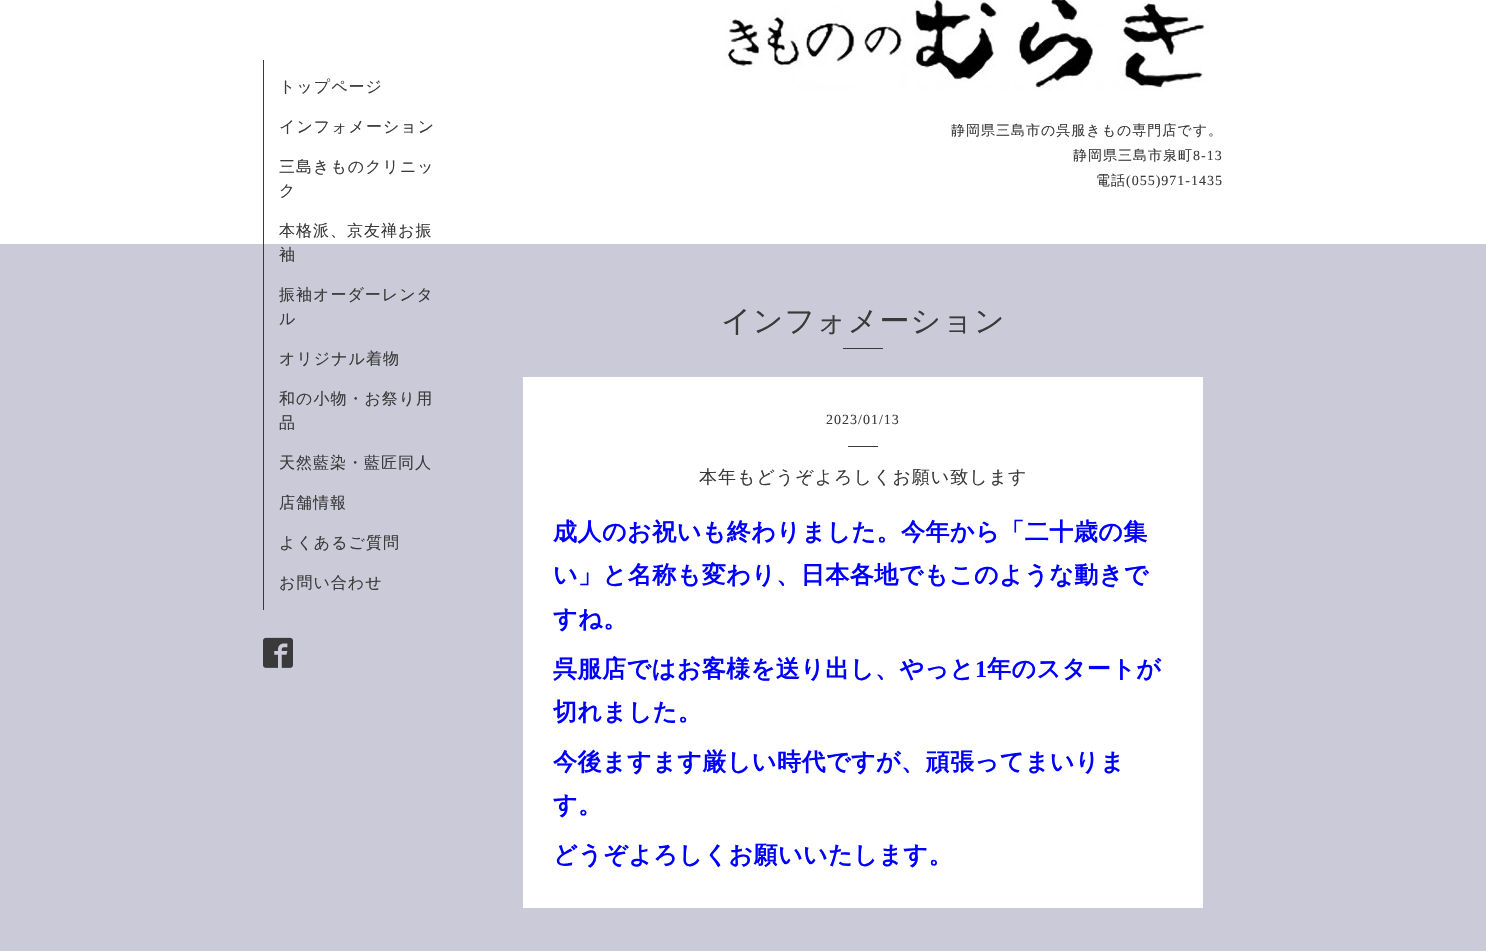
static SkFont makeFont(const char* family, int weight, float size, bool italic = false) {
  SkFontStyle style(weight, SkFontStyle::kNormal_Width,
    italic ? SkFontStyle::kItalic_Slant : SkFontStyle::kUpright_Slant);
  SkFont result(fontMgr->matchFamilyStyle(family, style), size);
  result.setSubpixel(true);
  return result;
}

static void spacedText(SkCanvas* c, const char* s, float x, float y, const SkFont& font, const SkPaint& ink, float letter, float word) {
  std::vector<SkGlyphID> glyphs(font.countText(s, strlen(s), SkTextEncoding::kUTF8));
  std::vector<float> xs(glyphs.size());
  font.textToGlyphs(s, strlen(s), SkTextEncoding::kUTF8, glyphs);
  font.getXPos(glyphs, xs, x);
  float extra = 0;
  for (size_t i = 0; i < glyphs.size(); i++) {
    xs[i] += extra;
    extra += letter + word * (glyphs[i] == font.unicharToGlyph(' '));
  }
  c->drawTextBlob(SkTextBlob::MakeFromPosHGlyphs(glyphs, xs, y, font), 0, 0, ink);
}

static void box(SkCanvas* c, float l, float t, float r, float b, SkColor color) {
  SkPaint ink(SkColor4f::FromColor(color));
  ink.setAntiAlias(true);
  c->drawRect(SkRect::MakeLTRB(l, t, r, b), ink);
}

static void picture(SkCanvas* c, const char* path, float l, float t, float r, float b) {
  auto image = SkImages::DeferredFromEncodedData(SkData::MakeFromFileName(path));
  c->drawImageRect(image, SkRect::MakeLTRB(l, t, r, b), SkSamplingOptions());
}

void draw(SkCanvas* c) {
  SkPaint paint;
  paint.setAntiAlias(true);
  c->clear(0xffffffff);
  box(c, 0, 244, 1486, 951, 0xffcbcad8);
  box(c, 263, 60, 264, 610, 0xff3a3a3a);
  SkFont face1 = makeFont("WenQuanYi Zen Hei", 500, 16);
  paint.setColor(0xff3a3a3a);
  spacedText(c, "トップページ", 279, 92, face1, paint, 1, 0);
  spacedText(c, "インフォメーション", 279, 132, face1, paint, 1, 0);
  spacedText(c, "三島きものクリニッ", 279, 172, face1, paint, 1, 0);
  spacedText(c, "ク", 279, 196, face1, paint, 1, 0);
  spacedText(c, "本格派、京友禅お振", 279, 236, face1, paint, 1, 0);
  spacedText(c, "袖", 279, 260, face1, paint, 1, 0);
  spacedText(c, "振袖オーダーレンタ", 279, 300, face1, paint, 1, 0);
  spacedText(c, "ル", 279, 324, face1, paint, 1, 0);
  spacedText(c, "オリジナル着物", 279, 364, face1, paint, 1, 0);
  spacedText(c, "和の小物・お祭り用", 279, 404, face1, paint, 1, 0);
  spacedText(c, "品", 279, 428, face1, paint, 1, 0);
  spacedText(c, "天然藍染・藍匠同人", 279, 468, face1, paint, 1, 0);
  spacedText(c, "店舗情報", 279, 508, face1, paint, 1, 0);
  spacedText(c, "よくあるご質問", 279, 548, face1, paint, 1, 0);
  spacedText(c, "お問い合わせ", 279, 588, face1, paint, 1, 0);
  picture(c, "img_01.png", 263, 637, 293, 668);
  picture(c, "img_02.png", 724, 0, 1211, 91);
  SkFont face2 = makeFont("WenQuanYi Zen Hei", 500, 14);
  spacedText(c, "静岡県三島市の呉服きもの専門店です。", 951, 135, face2, paint, 1, 0);
  spacedText(c, "静岡県三島市泉町", 1073, 160, face2, paint, 1, 0);
  SkFont face3 = makeFont("Liberation Serif", 400, 14);
  spacedText(c, "8-13", 1193, 160, face3, paint, 1, 0);
  spacedText(c, "電話", 1096, 185, face2, paint, 1, 0);
  spacedText(c, "(055)971-1435", 1126, 185, face3, paint, 1, 0);
  SkFont face4 = makeFont("WenQuanYi Zen Hei", 500, 30);
  spacedText(c, "インフォメーション", 721, 331, face4, paint, 1, 0);
  box(c, 843, 348, 883, 349, 0xff3a3a3a);
  box(c, 523, 377, 1203, 908, 0xffffffff);
  spacedText(c, "2023/01/13", 826, 424, face3, paint, 1, 0);
  box(c, 848, 446, 878, 447, 0xff3a3a3a);
  SkFont face5 = makeFont("WenQuanYi Zen Hei", 500, 18);
  spacedText(c, "本年もどうぞよろしくお願い致します", 699, 483, face5, paint, 1, 0);
  SkFont face6 = makeFont("WenQuanYi Zen Hei", 700, 24);
  paint.setColor(0xff0000ff);
  spacedText(c, "成人のお祝いも終わりました。今年から「二十歳の集", 553, 540, face6, paint, 0.5f, 0);
  spacedText(c, "い」と名称も変わり、日本各地でもこのような動きで", 553, 583, face6, paint, 0.5f, 0);
  spacedText(c, "すね。", 553, 627, face6, paint, 0.5f, 0);
  spacedText(c, "呉服店ではお客様を送り出し、やっと", 553, 677, face6, paint, 0.5f, 0);
  SkFont face7 = makeFont("Liberation Serif", 700, 24);
  spacedText(c, "1", 975, 677, face7, paint, 0.5f, 0);
  spacedText(c, "年のスタートが", 987, 677, face6, paint, 0.5f, 0);
  spacedText(c, "切れました。", 553, 720, face6, paint, 0.5f, 0);
  spacedText(c, "今後ますます厳しい時代ですが、頑張ってまいりま", 553, 770, face6, paint, 0.5f, 0);
  spacedText(c, "す。", 553, 813, face6, paint, 0.5f, 0);
  spacedText(c, "どうぞよろしくお願いいたします。", 553, 863, face6, paint, 0.5f, 0);
}
